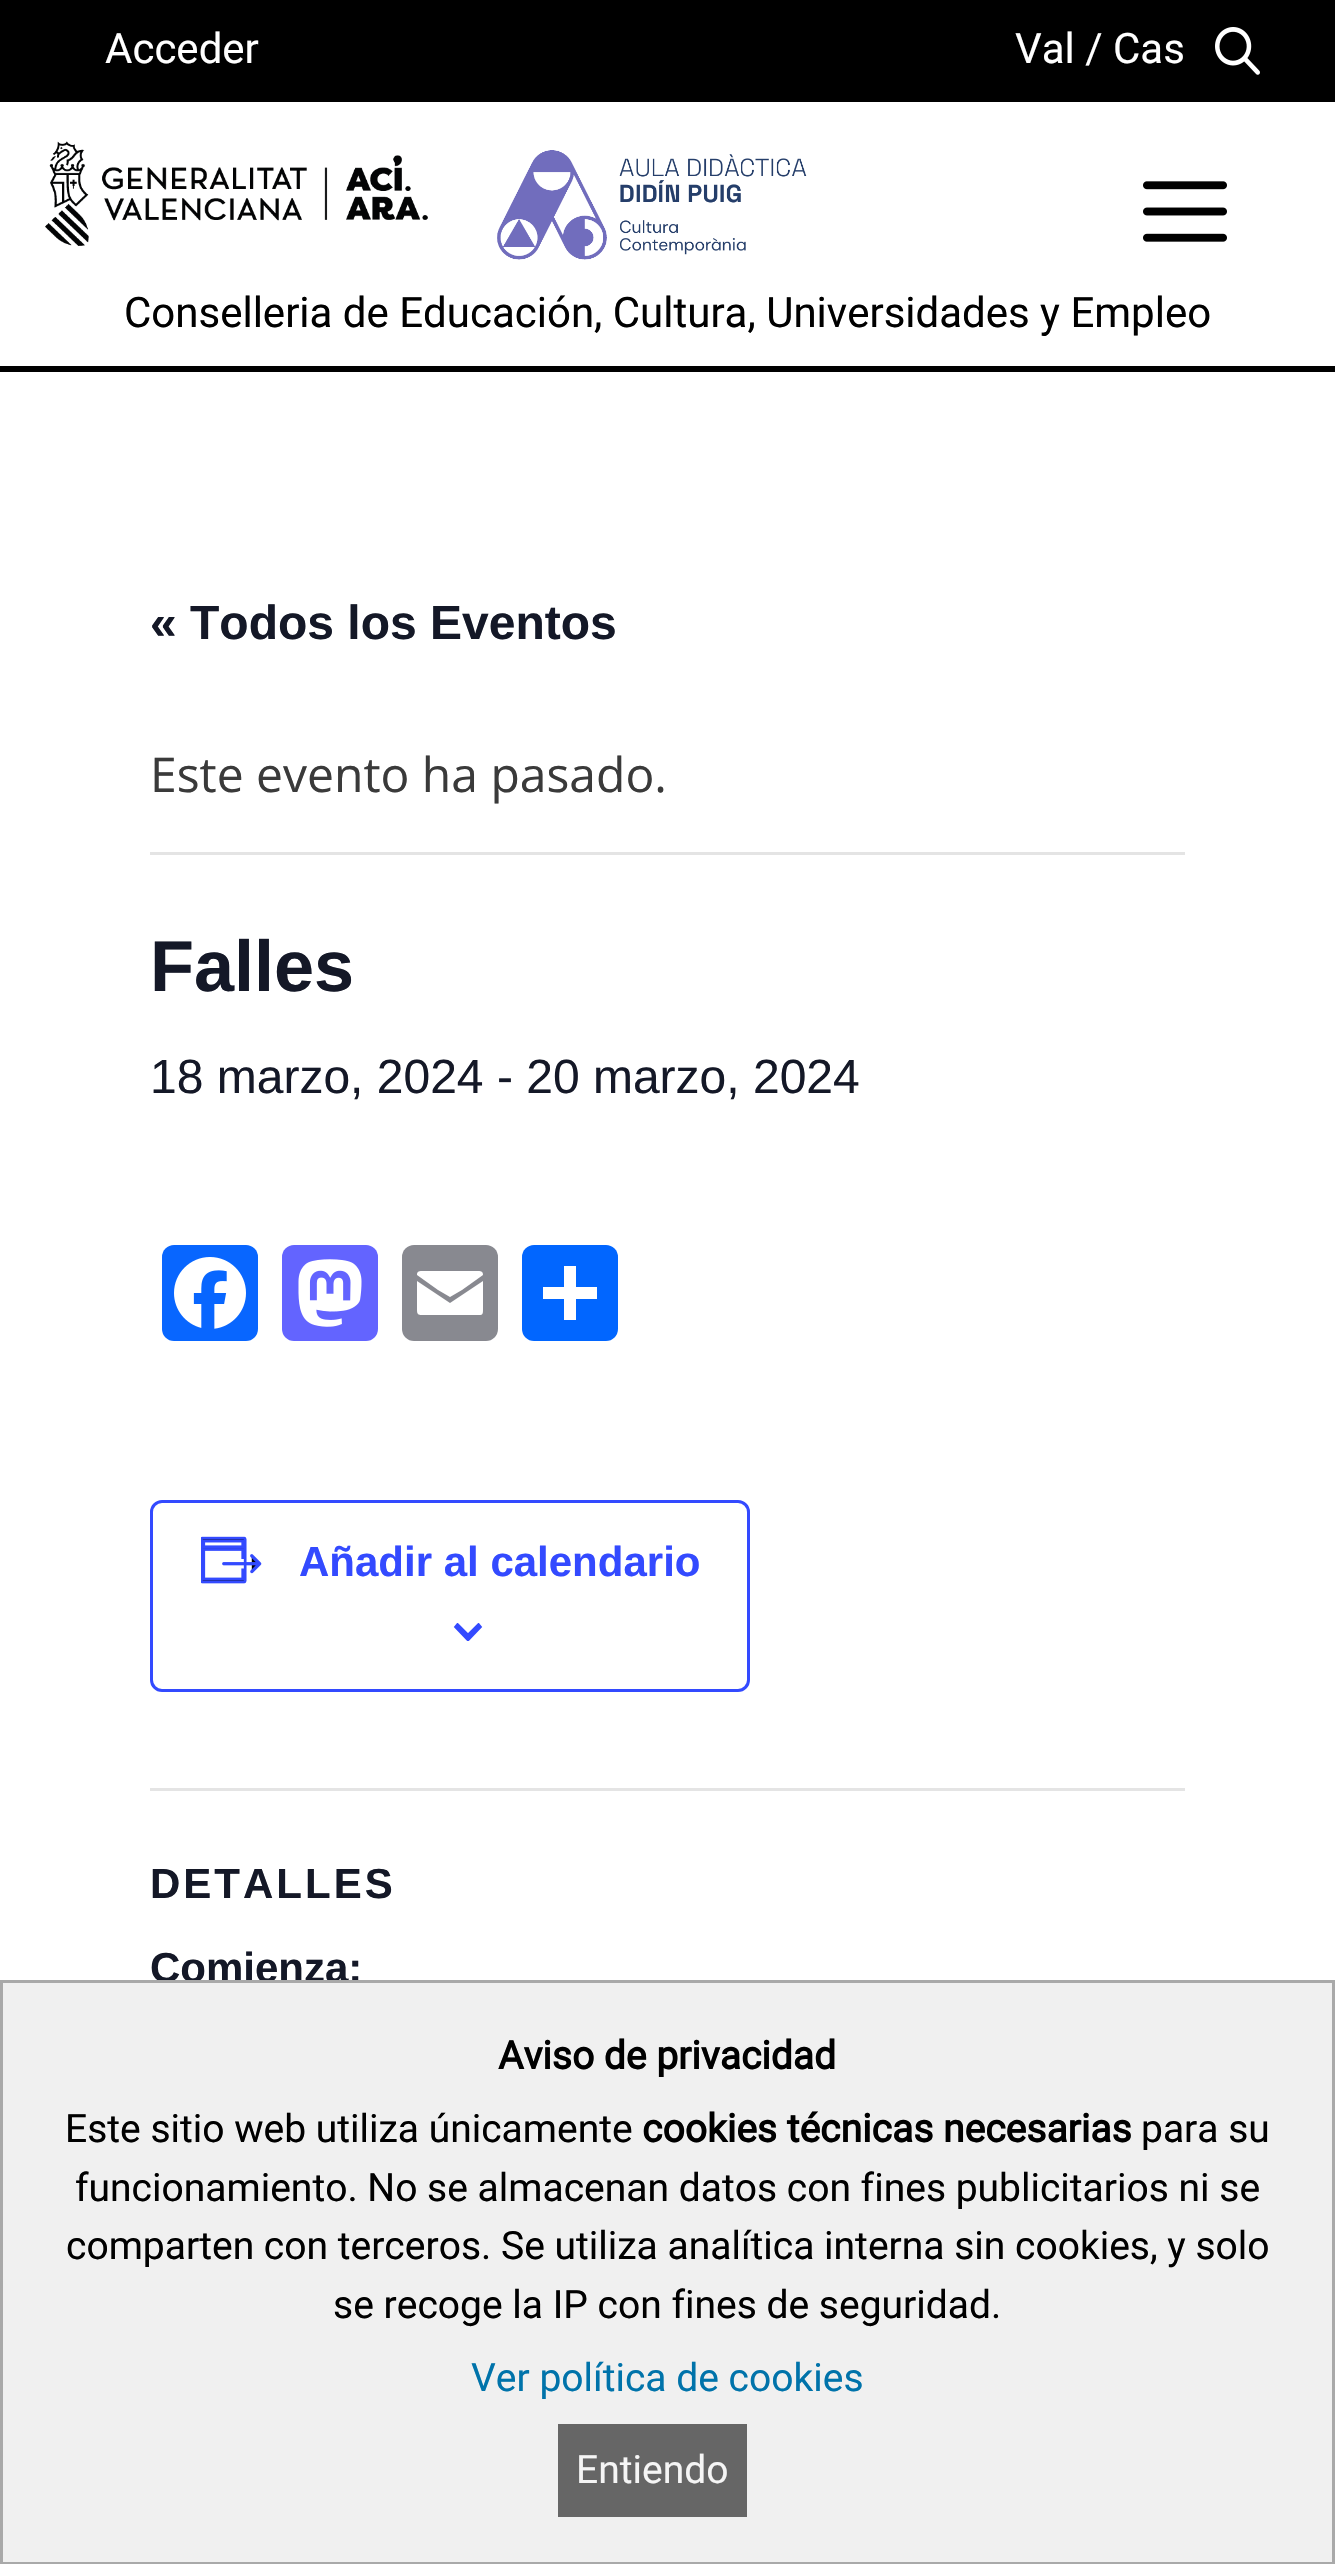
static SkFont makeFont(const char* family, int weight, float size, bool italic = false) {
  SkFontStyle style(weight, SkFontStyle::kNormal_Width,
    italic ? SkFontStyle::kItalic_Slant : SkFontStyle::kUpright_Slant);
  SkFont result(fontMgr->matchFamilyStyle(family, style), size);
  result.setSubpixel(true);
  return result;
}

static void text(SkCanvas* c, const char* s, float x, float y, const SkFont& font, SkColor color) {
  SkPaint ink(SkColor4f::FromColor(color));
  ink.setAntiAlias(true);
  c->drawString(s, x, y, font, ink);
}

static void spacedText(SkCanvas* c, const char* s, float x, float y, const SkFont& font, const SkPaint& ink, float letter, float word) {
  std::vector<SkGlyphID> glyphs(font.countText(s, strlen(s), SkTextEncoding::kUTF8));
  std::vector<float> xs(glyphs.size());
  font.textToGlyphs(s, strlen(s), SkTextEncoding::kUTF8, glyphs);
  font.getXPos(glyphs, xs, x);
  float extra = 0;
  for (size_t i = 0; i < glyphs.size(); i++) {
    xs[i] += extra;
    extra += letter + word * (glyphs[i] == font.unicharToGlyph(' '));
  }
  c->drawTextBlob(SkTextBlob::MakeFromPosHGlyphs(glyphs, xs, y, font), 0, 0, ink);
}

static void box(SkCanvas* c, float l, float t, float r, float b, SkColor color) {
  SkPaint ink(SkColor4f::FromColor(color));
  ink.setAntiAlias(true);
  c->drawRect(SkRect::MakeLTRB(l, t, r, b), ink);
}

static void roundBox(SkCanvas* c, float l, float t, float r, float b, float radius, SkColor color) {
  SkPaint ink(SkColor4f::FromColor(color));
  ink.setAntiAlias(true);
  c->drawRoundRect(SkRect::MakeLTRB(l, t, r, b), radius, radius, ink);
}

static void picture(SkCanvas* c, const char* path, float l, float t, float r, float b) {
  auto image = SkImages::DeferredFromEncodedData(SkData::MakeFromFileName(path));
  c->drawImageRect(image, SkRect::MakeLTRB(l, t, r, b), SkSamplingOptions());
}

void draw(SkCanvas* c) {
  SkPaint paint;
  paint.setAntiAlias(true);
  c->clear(0xffffffff);
  box(c, 0, 366, 1335, 372, 0xff000000);
  box(c, 0, 0, 1335, 102, 0xff000000);
  SkFont face1 = makeFont("Roboto", 400, 42);
  text(c, "Acceder", 105, 63, face1, 0xffffffff);
  text(c, "Val / Cas", 1015, 63, face1, 0xffffffff);
  picture(c, "img_01.png", 1215, 27, 1260, 75);
  picture(c, "img_02.png", 45, 141, 428, 246);
  picture(c, "img_03.png", 497, 150, 807, 260);
  text(c, "Conselleria de Educación, Cultura, Universidades y Empleo", 124, 327, face1, 0xff000000);
  picture(c, "img_04.png", 1143, 181, 1227, 242);
  SkFont face2 = makeFont("Liberation Sans", 700, 48);
  text(c, "« Todos los Eventos", 150, 639, face2, 0xff141827);
  box(c, 150, 852, 1185, 855, 0xffe4e4e4);
  SkFont face3 = makeFont("Open Sans", 400, 48);
  text(c, "Este evento ha pasado.", 150, 792, face3, 0xff3a3a3a);
  SkFont face4 = makeFont("Liberation Sans", 700, 72);
  text(c, "Falles", 150, 991, face4, 0xff141827);
  SkFont face5 = makeFont("Liberation Sans", 400, 48);
  text(c, "18 marzo, 2024 - 20 marzo, 2024", 150, 1093, face5, 0xff141827);
  roundBox(c, 162, 1245, 258, 1341, 12, 0xff0866ff);
  picture(c, "img_05.png", 174, 1257, 246, 1329);
  roundBox(c, 282, 1245, 378, 1341, 12, 0xff6364ff);
  picture(c, "img_06.png", 298, 1259, 362, 1327);
  roundBox(c, 402, 1245, 498, 1341, 12, 0xff888990);
  paint.setColor(0xffffffff);
  c->drawPath(SkPathBuilder().moveTo(483, 1310).lineTo(483, 1281).lineTo(450, 1303).lineTo(417, 1281).lineTo(417, 1310).cubicTo(417, 1314, 418, 1315, 422, 1315).lineTo(478, 1315).cubicTo(482, 1315, 483, 1315, 483, 1310).moveTo(483, 1275).cubicTo(483, 1272, 482, 1271, 478, 1271).lineTo(422, 1271).cubicTo(418, 1271, 417, 1272, 417, 1275).lineTo(438, 1290).lineTo(450, 1297).lineTo(462, 1290).close().detach(), paint);
  roundBox(c, 522, 1245, 618, 1341, 12, 0xff0166ff);
  box(c, 564, 1266, 576, 1320, 0xffffffff);
  box(c, 543, 1287, 597, 1299, 0xffffffff);
  paint.setStyle(SkPaint::kStroke_Style);
  paint.setStrokeWidth(3);
  paint.setColor(0xff334aff);
  c->drawRoundRect(SkRect::MakeLTRB(151.5f, 1501.5f, 748.5f, 1690.5f), 10.5f, 10.5f, paint);
  picture(c, "img_07.png", 201, 1536, 262, 1584);
  SkFont face6 = makeFont("Liberation Sans", 700, 42);
  text(c, "Añadir al calendario", 299, 1576, face6, 0xff334aff);
  paint.setStyle(SkPaint::kFill_Style);
  c->drawPath(SkPathBuilder(SkPathFillType::kEvenOdd).moveTo(457.5f, 1624.5f).lineTo(468, 1635).lineTo(478.5f, 1624.5f).lineTo(480.5f, 1627).lineTo(468, 1640).lineTo(455.5f, 1627).close().detach(), paint);
  c->save();
  c->clipRect(SkRect::MakeLTRB(453, 1623, 483, 1641));
  paint.setStyle(SkPaint::kStroke_Style);
  paint.setStrokeWidth(2.6f);
  c->drawPath(SkPathBuilder().moveTo(457.5f, 1624.5f).lineTo(468, 1635).lineTo(478.5f, 1624.5f).lineTo(480.5f, 1627).lineTo(468, 1640).lineTo(455.5f, 1627).close().detach(), paint);
  c->restore();
  box(c, 150, 1788, 1185, 1791, 0xffe4e4e4);
  paint.setStyle(SkPaint::kFill_Style);
  paint.setColor(0xff141827);
  spacedText(c, "DETALLES", 150, 1898, face6, paint, 3, 0);
  text(c, "Comienza:", 150, 1982, face6, 0xff141827);
  paint.setColor(0xfff0f0f0);
  c->drawRect(SkRect::MakeLTRB(1.5f, 1981.5f, 1333.5f, 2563.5f), paint);
  paint.setStyle(SkPaint::kStroke_Style);
  paint.setStrokeWidth(3);
  paint.setColor(0xffa9a9a9);
  c->drawRect(SkRect::MakeLTRB(1.5f, 1981.5f, 1333.5f, 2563.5f), paint);
  SkFont face7 = makeFont("Roboto", 700, 39);
  text(c, "Aviso de privacidad", 498, 2069, face7, 0xff000000);
  SkFont face8 = makeFont("Roboto", 400, 39);
  text(c, "Este sitio web utiliza únicamente", 65, 2142, face8, 0xff000000);
  text(c, "cookies técnicas necesarias", 642, 2142, face7, 0xff000000);
  text(c, "para su", 1141, 2142, face8, 0xff000000);
  text(c, "funcionamiento. No se almacenan datos con fines publicitarios ni se", 75, 2201, face8, 0xff000000);
  text(c, "comparten con terceros. Se utiliza analítica interna sin cookies, y solo", 66, 2259, face8, 0xff000000);
  text(c, "se recoge la IP con fines de seguridad.", 333, 2318, face8, 0xff000000);
  text(c, "Ver política de cookies", 471, 2391, face8, 0xff0073aa);
  box(c, 558, 2424, 747, 2517, 0xff666666);
  text(c, "Entiendo", 576, 2483, face8, 0xfff5f5f5);
}
